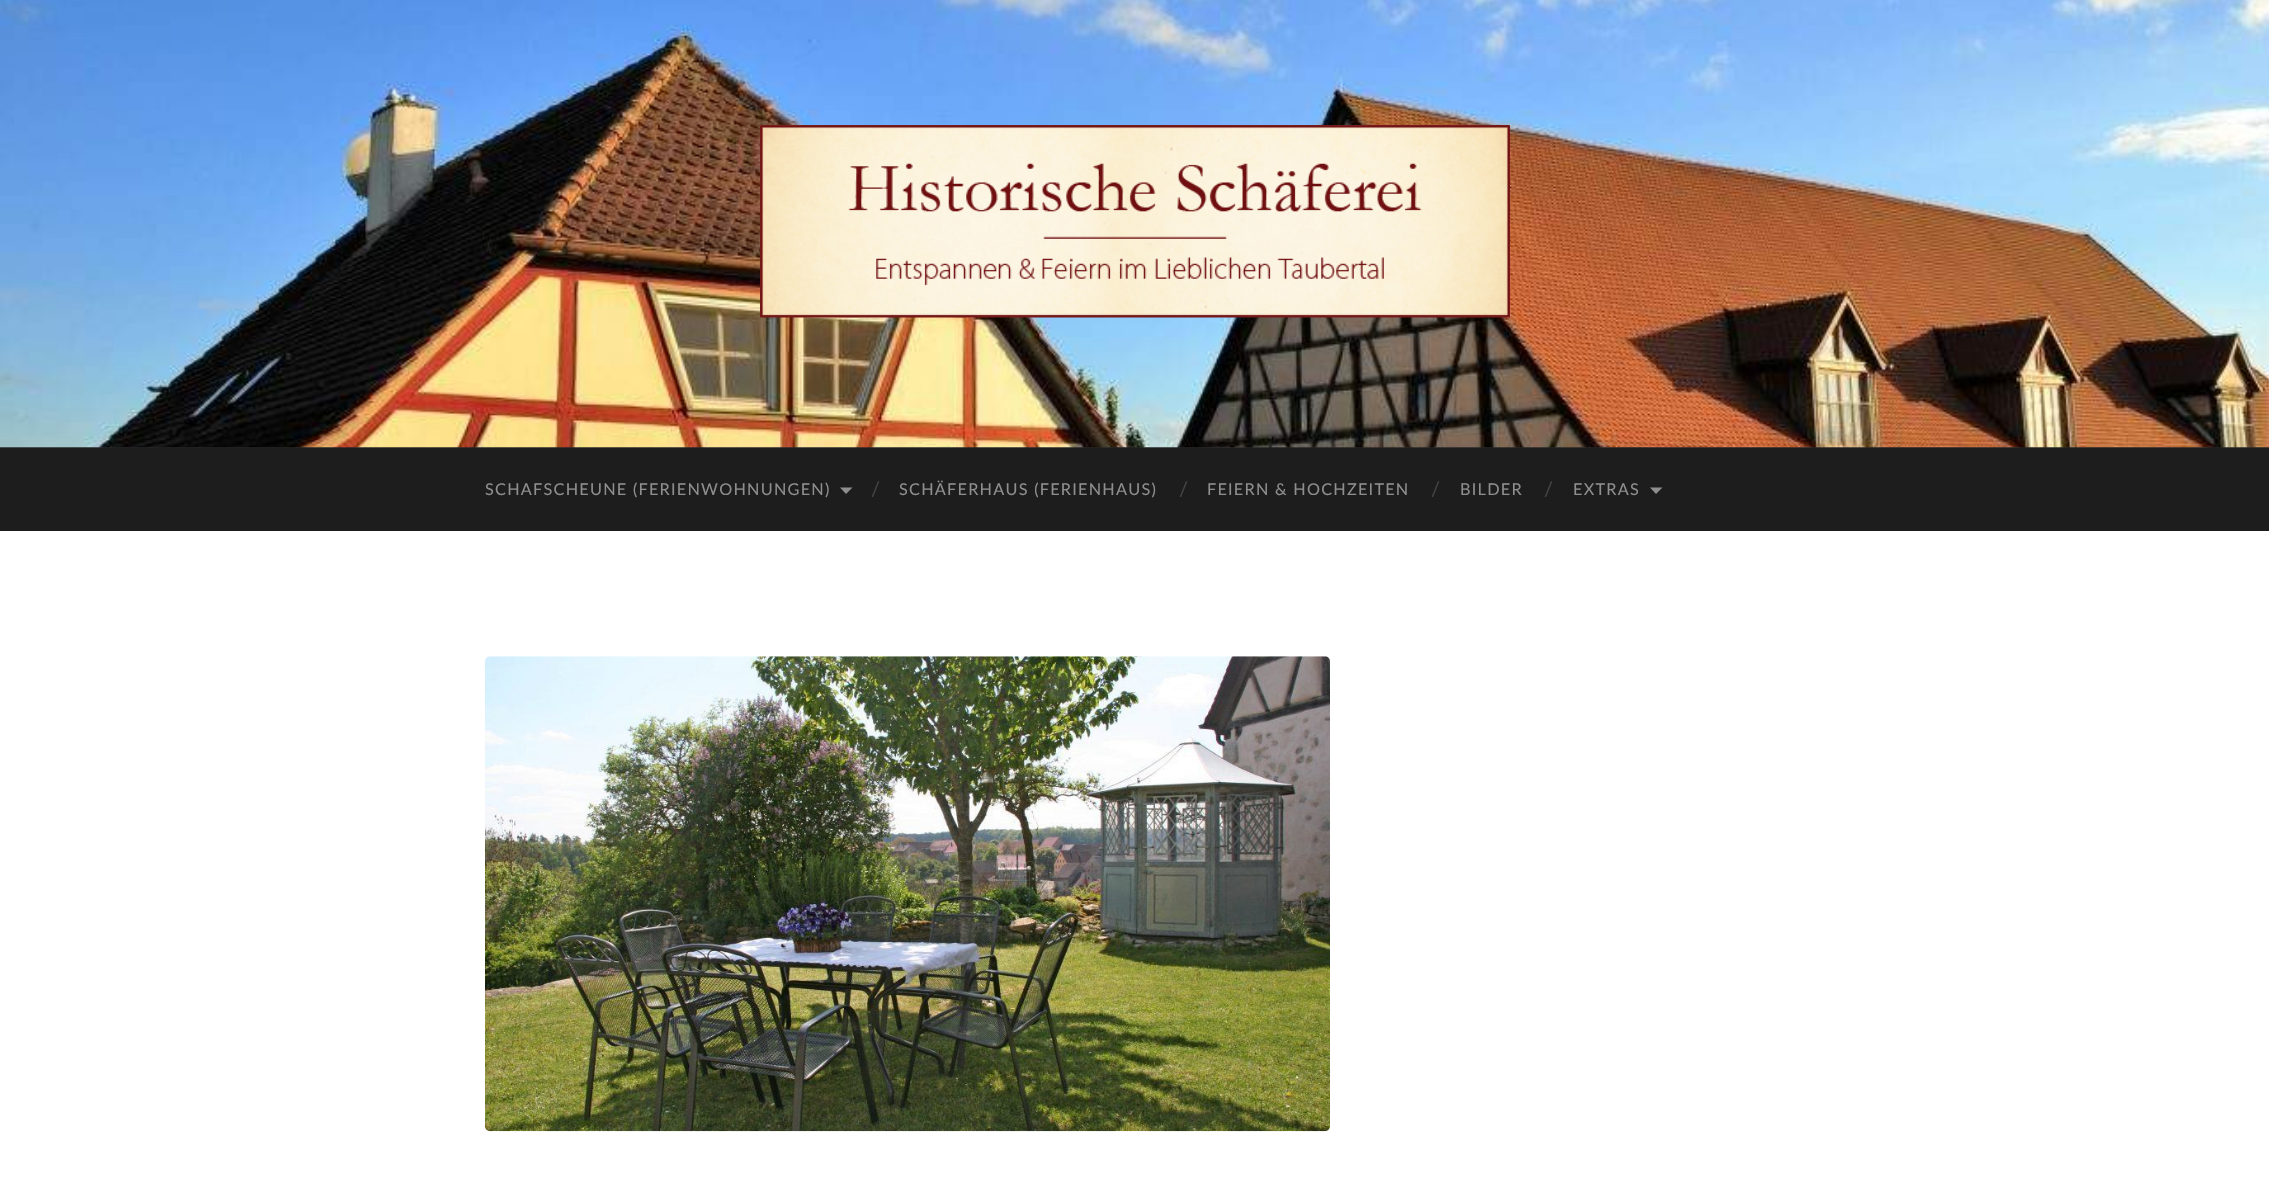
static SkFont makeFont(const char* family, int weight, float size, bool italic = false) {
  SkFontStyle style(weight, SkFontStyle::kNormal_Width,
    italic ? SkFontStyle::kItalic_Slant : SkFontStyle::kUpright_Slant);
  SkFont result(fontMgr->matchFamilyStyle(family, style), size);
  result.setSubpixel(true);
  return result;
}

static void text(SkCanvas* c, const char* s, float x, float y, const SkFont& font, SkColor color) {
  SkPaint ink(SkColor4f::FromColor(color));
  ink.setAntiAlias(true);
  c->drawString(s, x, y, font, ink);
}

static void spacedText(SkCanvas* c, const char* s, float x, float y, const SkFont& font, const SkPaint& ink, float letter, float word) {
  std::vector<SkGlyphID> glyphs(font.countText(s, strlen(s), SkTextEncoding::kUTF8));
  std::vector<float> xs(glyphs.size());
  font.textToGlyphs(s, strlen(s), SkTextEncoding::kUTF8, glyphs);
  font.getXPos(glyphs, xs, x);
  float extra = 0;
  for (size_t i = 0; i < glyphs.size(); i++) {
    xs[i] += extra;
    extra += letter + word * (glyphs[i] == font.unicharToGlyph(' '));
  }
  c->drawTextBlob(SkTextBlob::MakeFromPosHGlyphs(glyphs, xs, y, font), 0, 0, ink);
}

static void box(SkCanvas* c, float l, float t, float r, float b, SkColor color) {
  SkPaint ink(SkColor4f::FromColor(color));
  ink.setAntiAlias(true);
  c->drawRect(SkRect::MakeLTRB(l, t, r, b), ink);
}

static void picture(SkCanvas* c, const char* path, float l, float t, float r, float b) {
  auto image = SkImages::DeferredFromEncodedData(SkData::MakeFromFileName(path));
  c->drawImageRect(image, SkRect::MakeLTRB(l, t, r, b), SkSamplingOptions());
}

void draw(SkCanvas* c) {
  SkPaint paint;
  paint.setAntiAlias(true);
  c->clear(0xffffffff);
  box(c, 0, 447, 2269, 448, 0xff262626);
  picture(c, "img_01.png", 0, 0, 2269, 448);
  picture(c, "img_02.png", 760, 125, 1510, 318);
  box(c, 0, 448, 2269, 531, 0xff1d1d1d);
  SkFont face1 = makeFont("Lato", 400, 16.25f);
  paint.setColor(0xff8e8e8e);
  spacedText(c, "SCHAFSCHEUNE (FERIENWOHNUNGEN)", 485, 495, face1, paint, 1.25f, 0);
  c->drawPath(SkPathBuilder().moveTo(840, 487.5f).lineTo(852.5f, 487.5f).lineTo(846, 494).close().detach(), paint);
  SkFont face2 = makeFont("Lato", 400, 20);
  text(c, "/", 871, 496, face2, 0xff444444);
  spacedText(c, "SCHÄFERHAUS (FERIENHAUS)", 899, 495, face1, paint, 1.25f, 0);
  text(c, "/", 1179, 496, face2, 0xff444444);
  spacedText(c, "FEIERN & HOCHZEITEN", 1207, 495, face1, paint, 1.25f, 0);
  text(c, "/", 1431, 496, face2, 0xff444444);
  spacedText(c, "BILDER", 1460, 495, face1, paint, 1.25f, 0);
  text(c, "/", 1544, 496, face2, 0xff444444);
  spacedText(c, "EXTRAS", 1573, 495, face1, paint, 1.25f, 0);
  c->drawPath(SkPathBuilder().moveTo(1650, 487.5f).lineTo(1662.5f, 487.5f).lineTo(1656, 494).close().detach(), paint);
  picture(c, "img_03.png", 485, 656, 1330, 1132);
}
